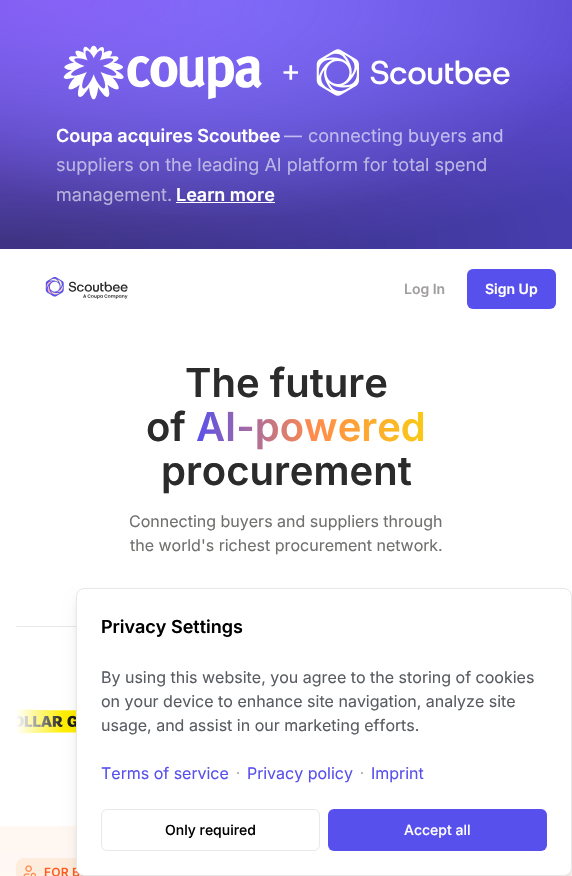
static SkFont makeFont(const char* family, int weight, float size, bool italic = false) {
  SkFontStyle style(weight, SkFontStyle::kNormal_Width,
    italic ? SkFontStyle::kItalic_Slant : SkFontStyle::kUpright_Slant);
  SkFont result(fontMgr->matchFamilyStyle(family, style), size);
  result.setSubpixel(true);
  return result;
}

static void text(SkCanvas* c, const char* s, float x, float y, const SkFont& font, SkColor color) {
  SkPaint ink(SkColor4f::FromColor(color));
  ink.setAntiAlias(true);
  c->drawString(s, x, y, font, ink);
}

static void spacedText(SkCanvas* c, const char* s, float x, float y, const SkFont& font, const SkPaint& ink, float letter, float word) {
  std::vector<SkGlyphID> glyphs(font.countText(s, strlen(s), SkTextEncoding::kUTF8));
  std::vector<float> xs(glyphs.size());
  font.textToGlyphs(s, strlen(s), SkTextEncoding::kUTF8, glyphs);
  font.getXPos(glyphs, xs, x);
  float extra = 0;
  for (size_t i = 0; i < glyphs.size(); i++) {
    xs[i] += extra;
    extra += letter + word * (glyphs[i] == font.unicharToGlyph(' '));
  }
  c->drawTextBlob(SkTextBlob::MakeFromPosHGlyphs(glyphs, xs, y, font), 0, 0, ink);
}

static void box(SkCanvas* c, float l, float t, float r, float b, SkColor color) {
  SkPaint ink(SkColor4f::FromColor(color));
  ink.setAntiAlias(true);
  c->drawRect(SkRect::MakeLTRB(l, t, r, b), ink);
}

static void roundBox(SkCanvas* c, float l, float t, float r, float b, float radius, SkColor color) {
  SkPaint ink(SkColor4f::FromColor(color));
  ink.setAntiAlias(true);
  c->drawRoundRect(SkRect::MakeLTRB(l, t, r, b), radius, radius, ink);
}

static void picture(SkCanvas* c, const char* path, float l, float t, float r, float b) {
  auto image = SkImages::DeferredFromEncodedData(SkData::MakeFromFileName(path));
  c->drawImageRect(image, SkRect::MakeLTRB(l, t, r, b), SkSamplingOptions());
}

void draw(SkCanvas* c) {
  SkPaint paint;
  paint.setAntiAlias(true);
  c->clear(0xffffffff);
  {
    const SkColor colors[] = {0xff362f78, 0xff5145cd};
    const float stops[] = {0, 1};
    SkMatrix m = SkMatrix::Translate(12, 240).preScale(872, 237);
    paint.setShader(SkGradientShader::MakeRadial({0, 0}, 1, colors, stops, 2, SkTileMode::kClamp, 0, &m));
    paint.setAlpha(255);
  }
  c->drawRect(SkRect::MakeLTRB(0, 0, 572, 249), paint);
  {
    const SkColor colors[] = {0xff6875f5, 0x006875f5};
    const float stops[] = {0, 1};
    SkMatrix m = SkMatrix::Translate(212, 0).preScale(395, 221);
    paint.setShader(SkGradientShader::MakeRadial({0, 0}, 1, colors, stops, 2, SkTileMode::kClamp, 0, &m));
    paint.setAlpha(255);
  }
  c->drawRect(SkRect::MakeLTRB(0, 0, 572, 216), paint);
  {
    const SkColor colors[] = {0xcc9061f9, 0x009061f9};
    const float stops[] = {0, 1};
    SkMatrix m = SkMatrix::Translate(54, 0).preScale(732, 270);
    paint.setShader(SkGradientShader::MakeRadial({0, 0}, 1, colors, stops, 2, SkTileMode::kClamp, 0, &m));
    paint.setAlpha(255);
  }
  c->drawRect(SkRect::MakeLTRB(0, 0, 572, 249), paint);
  picture(c, "img_01.png", 63, 45, 510, 100);
  SkFont face1 = makeFont("Inter", 600, 18);
  text(c, "Coupa acquires Scoutbee", 56, 142, face1, 0xffffffff);
  SkFont face2 = makeFont("Inter", 400, 18);
  paint.setShader(nullptr);
  paint.setColor(0xffc1bbee);
  spacedText(c, "—", 284, 142, face2, paint, 2, 0);
  text(c, "connecting buyers and", 308, 142, face2, 0xffc1bbee);
  text(c, "suppliers on the leading AI platform for total spend", 56, 171, face2, 0xffbdb7e6);
  text(c, "management.", 56, 201, face2, 0xffb9b3dc);
  text(c, "Learn more", 176, 201, face1, 0xffffffff);
  box(c, 176, 202, 275, 203, 0xffffffff);
  picture(c, "img_02.png", 45, 277, 128, 299);
  SkFont face3 = makeFont("Inter", 600, 14);
  text(c, "Log In", 404, 294, face3, 0xffa1a09f);
  roundBox(c, 467, 269, 556, 309, 6, 0xff5850ec);
  text(c, "Sign Up", 485, 294, face3, 0xffffffff);
  SkFont face4 = makeFont("Inter", 600, 40);
  text(c, "The future", 185, 397, face4, 0xff2b2b2b);
  text(c, "of", 146, 441, face4, 0xff2b2b2b);
  {
    const SkColor colors[] = {0xff5850ec, 0xffff8a4c, 0xfffaca15};
    const float stops[] = {0, 0.5f, 1};
    const SkPoint ends[] = {{196, 426}, {426, 426}};
    paint.setShader(SkGradientShader::MakeLinear(ends, colors, stops, 3, SkTileMode::kClamp));
    paint.setAlpha(255);
  }
  c->drawString("AI-powered", 196, 441, face4, paint);
  text(c, "procurement", 161, 485, face4, 0xff2b2b2b);
  SkFont face5 = makeFont("Inter", 400, 16);
  text(c, "Connecting buyers and suppliers through", 129, 527, face5, 0xff70706f);
  text(c, "the world's richest procurement network.", 130, 551, face5, 0xff70706f);
  roundBox(c, 16, 626, 162, 627, 0.5f, 0xffe8e8e6);
  picture(c, "img_03.png", 16, 709, 76, 734);
  {
    const SkColor colors[] = {0xffffffff, 0x00ffffff};
    const float stops[] = {0, 1};
    const SkPoint ends[] = {{16, 727}, {64, 727}};
    paint.setShader(SkGradientShader::MakeLinear(ends, colors, stops, 2, SkTileMode::kClamp));
    paint.setAlpha(255);
  }
  c->drawRect(SkRect::MakeLTRB(16, 709, 63, 734), paint);
  {
    const SkColor colors[] = {0xfffff7f2, 0xffffffff};
    const float stops[] = {0, 1};
    const SkPoint ends[] = {{286, 826}, {286, 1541}};
    paint.setShader(SkGradientShader::MakeLinear(ends, colors, stops, 2, SkTileMode::kClamp));
    paint.setAlpha(255);
  }
  c->drawRect(SkRect::MakeLTRB(0, 826, 572, 876), paint);
  picture(c, "img_04.png", 16, 858, 84, 876);
  paint.setShader(nullptr);
  paint.setColor(0x1a000000);
  paint.setMaskFilter(SkMaskFilter::MakeBlur(kNormal_SkBlurStyle, 3));
  c->drawRoundRect(SkRect::MakeLTRB(80, 596, 568, 876), 4, 4, paint);
  paint.setMaskFilter(nullptr);
  paint.setMaskFilter(SkMaskFilter::MakeBlur(kNormal_SkBlurStyle, 7.5f));
  c->drawRoundRect(SkRect::MakeLTRB(79, 601, 569, 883), 5, 5, paint);
  paint.setMaskFilter(nullptr);
  paint.setColor(0xffffffff);
  c->drawRoundRect(SkRect::MakeLTRB(76.5f, 588.5f, 571.5f, 875.5f), 7.5f, 7.5f, paint);
  paint.setStyle(SkPaint::kStroke_Style);
  paint.setStrokeWidth(1);
  paint.setColor(0xffe8e8e6);
  c->drawRoundRect(SkRect::MakeLTRB(76.5f, 588.5f, 571.5f, 875.5f), 7.5f, 7.5f, paint);
  text(c, "Privacy Settings", 101, 633, face1, 0xff000000);
  text(c, "By using this website, you agree to the storing of cookies", 101, 683, face5, 0xff595d62);
  text(c, "on your device to enhance site navigation, analyze site", 101, 707, face5, 0xff595d62);
  text(c, "usage, and assist in our marketing efforts.", 101, 731, face5, 0xff595d62);
  text(c, "Terms of service", 101, 779, face5, 0xff5850ec);
  paint.setStyle(SkPaint::kFill_Style);
  paint.setColor(0xffa1a09f);
  c->drawCircle(238, 773, 1, paint);
  text(c, "Privacy policy", 247, 779, face5, 0xff5850ec);
  c->drawCircle(362, 773, 1, paint);
  text(c, "Imprint", 371, 779, face5, 0xff5850ec);
  paint.setStyle(SkPaint::kStroke_Style);
  paint.setColor(0xffe8e8e6);
  c->drawRoundRect(SkRect::MakeLTRB(101.5f, 809.5f, 319.5f, 850.5f), 5.5f, 5.5f, paint);
  SkFont face6 = makeFont("Inter", 500, 14);
  text(c, "Only required", 165, 835, face6, 0xff000000);
  roundBox(c, 328, 809, 547, 851, 6, 0xff5850ec);
  text(c, "Accept all", 404, 835, face6, 0xffffffff);
}
